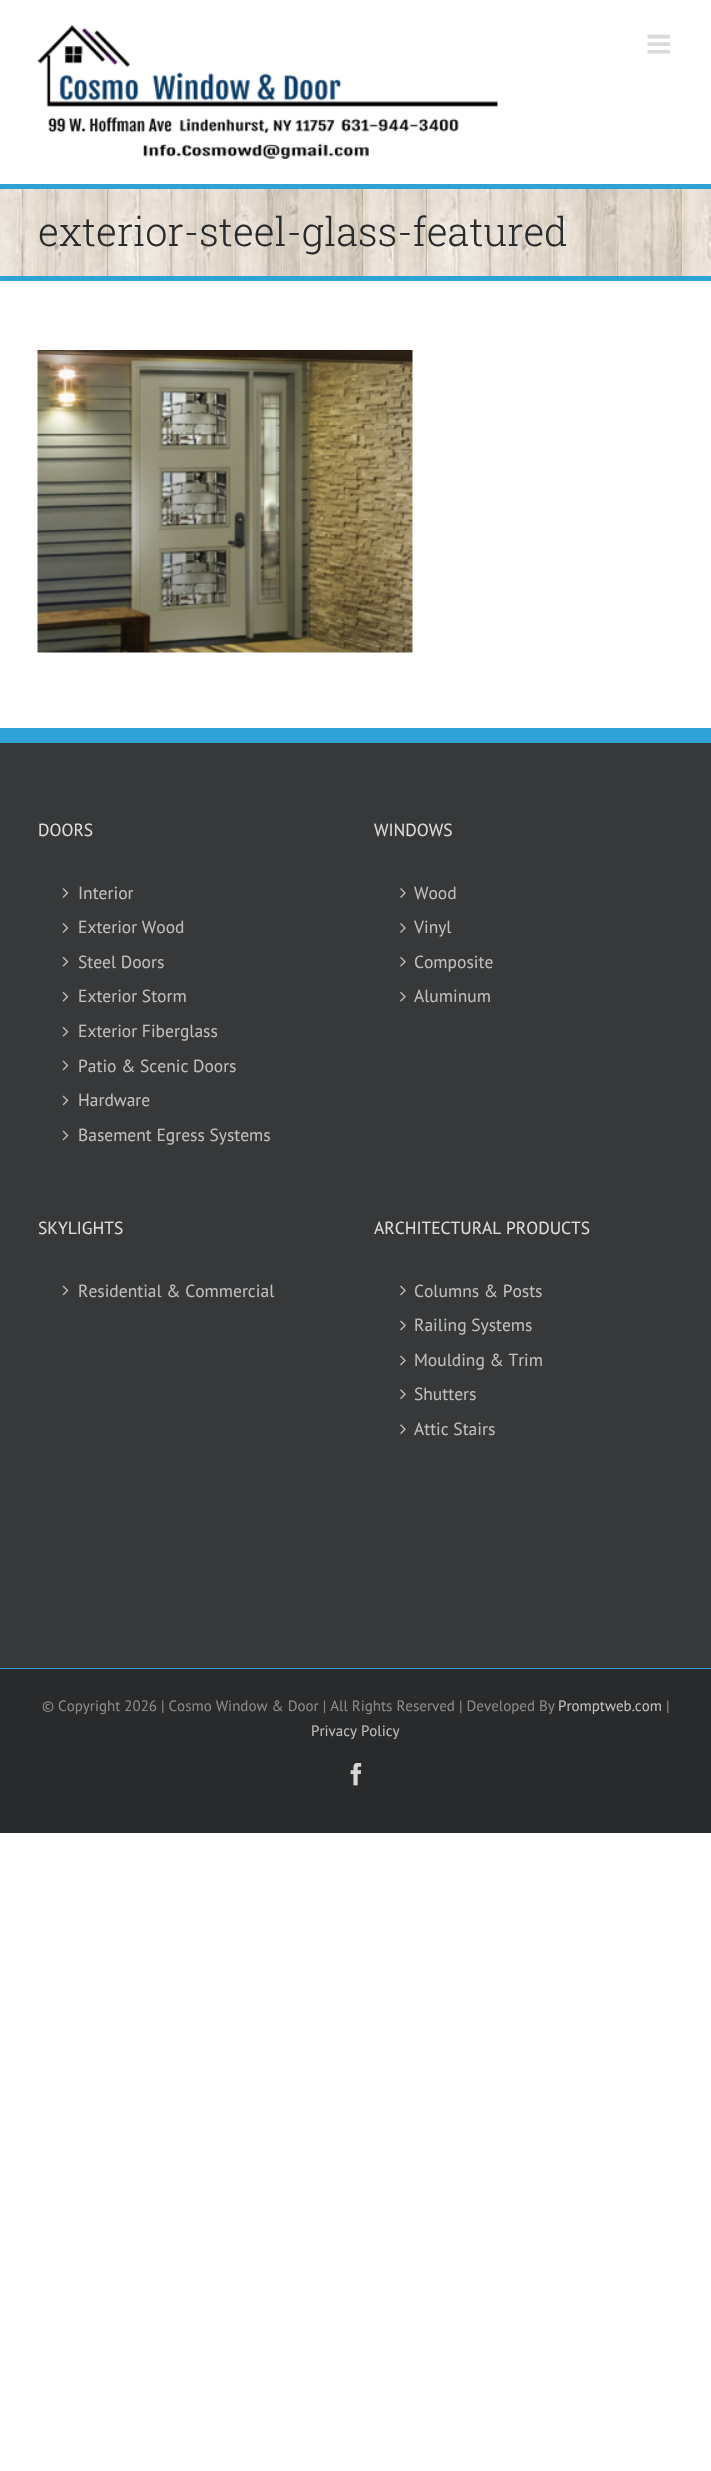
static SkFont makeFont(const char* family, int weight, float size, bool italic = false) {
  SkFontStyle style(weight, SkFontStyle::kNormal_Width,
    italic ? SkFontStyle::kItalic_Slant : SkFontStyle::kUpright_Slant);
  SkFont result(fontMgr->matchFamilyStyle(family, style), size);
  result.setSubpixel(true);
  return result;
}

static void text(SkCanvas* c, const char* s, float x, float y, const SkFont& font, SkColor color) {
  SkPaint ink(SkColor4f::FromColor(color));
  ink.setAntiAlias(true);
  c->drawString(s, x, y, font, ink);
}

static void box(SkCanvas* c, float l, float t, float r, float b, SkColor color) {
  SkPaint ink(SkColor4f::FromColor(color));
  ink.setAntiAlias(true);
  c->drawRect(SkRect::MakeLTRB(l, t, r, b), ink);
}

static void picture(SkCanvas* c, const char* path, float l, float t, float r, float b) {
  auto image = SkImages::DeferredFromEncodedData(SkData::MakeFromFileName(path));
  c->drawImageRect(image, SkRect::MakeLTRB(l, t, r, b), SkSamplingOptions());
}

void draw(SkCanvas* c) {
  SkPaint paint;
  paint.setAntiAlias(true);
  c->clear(0xffffffff);
  picture(c, "img_01.png", 37, 25, 498, 159);
  picture(c, "img_02.png", 647, 34, 670, 54);
  picture(c, "img_03.png", 0, 189, 711, 276);
  box(c, 0, 184, 711, 189, 0xff2ea2d4);
  box(c, 0, 276, 711, 281, 0xff2ea2d4);
  SkFont face1 = makeFont("Roboto Slab", 300, 39.75f);
  text(c, "exterior-steel-glass-featured", 38, 246, face1, 0xff282a2b);
  picture(c, "img_04.png", 37, 350, 413, 653);
  box(c, 0, 743, 711, 1668, 0xff363839);
  box(c, 0, 728, 711, 743, 0xff2ea2d4);
  SkFont face2 = makeFont("PT Sans", 400, 17.5f);
  text(c, "DOORS", 38, 836, face2, 0xffdddddd);
  picture(c, "img_05.png", 62, 888, 69, 898);
  text(c, "Interior", 78, 899, face2, 0xffbfbfbf);
  picture(c, "img_05.png", 62, 923, 69, 933);
  text(c, "Exterior Wood", 78, 933, face2, 0xffbfbfbf);
  picture(c, "img_06.png", 62, 956, 69, 967);
  text(c, "Steel Doors", 78, 968, face2, 0xffbfbfbf);
  picture(c, "img_06.png", 62, 991, 69, 1002);
  text(c, "Exterior Storm", 78, 1002, face2, 0xffbfbfbf);
  picture(c, "img_06.png", 62, 1026, 69, 1037);
  text(c, "Exterior Fiberglass", 78, 1037, face2, 0xffbfbfbf);
  picture(c, "img_07.png", 62, 1060, 69, 1071);
  text(c, "Patio & Scenic Doors", 78, 1072, face2, 0xffbfbfbf);
  picture(c, "img_07.png", 62, 1095, 69, 1106);
  text(c, "Hardware", 78, 1106, face2, 0xffbfbfbf);
  picture(c, "img_07.png", 62, 1130, 69, 1141);
  text(c, "Basement Egress Systems", 78, 1141, face2, 0xffbfbfbf);
  text(c, "WINDOWS", 374, 836, face2, 0xffdddddd);
  picture(c, "img_08.png", 400, 888, 406, 898);
  text(c, "Wood", 414, 899, face2, 0xffbfbfbf);
  picture(c, "img_08.png", 400, 923, 406, 933);
  text(c, "Vinyl", 414, 933, face2, 0xffbfbfbf);
  picture(c, "img_09.png", 400, 956, 406, 967);
  text(c, "Composite", 414, 968, face2, 0xffbfbfbf);
  picture(c, "img_09.png", 400, 991, 406, 1002);
  text(c, "Aluminum", 414, 1002, face2, 0xffbfbfbf);
  text(c, "SKYLIGHTS", 38, 1234, face2, 0xffdddddd);
  picture(c, "img_07.png", 62, 1285, 69, 1296);
  text(c, "Residential & Commercial", 78, 1297, face2, 0xffbfbfbf);
  text(c, "ARCHITECTURAL PRODUCTS", 374, 1234, face2, 0xffdddddd);
  picture(c, "img_10.png", 400, 1285, 406, 1296);
  text(c, "Columns & Posts", 414, 1297, face2, 0xffbfbfbf);
  picture(c, "img_10.png", 400, 1320, 406, 1331);
  text(c, "Railing Systems", 414, 1331, face2, 0xffbfbfbf);
  picture(c, "img_10.png", 400, 1355, 406, 1366);
  text(c, "Moulding & Trim", 414, 1366, face2, 0xffbfbfbf);
  picture(c, "img_11.png", 400, 1389, 406, 1399);
  text(c, "Shutters", 414, 1400, face2, 0xffbfbfbf);
  picture(c, "img_11.png", 400, 1424, 406, 1434);
  text(c, "Attic Stairs", 414, 1435, face2, 0xffbfbfbf);
  box(c, 0, 1669, 711, 1833, 0xff282a2b);
  box(c, 0, 1668, 711, 1669, 0xff2ea2d4);
  SkFont face3 = makeFont("PT Sans", 400, 15);
  text(c, "© Copyright 2026 | Cosmo Window & Door | All Rights Reserved | Developed By", 42, 1711, face3, 0xff8c8989);
  text(c, "Promptweb.com", 558, 1711, face3, 0xffbfbfbf);
  text(c, "|", 666, 1711, face3, 0xff8c8989);
  text(c, "Privacy Policy", 311, 1736, face3, 0xffbfbfbf);
  picture(c, "img_12.png", 350, 1763, 362, 1786);
}
